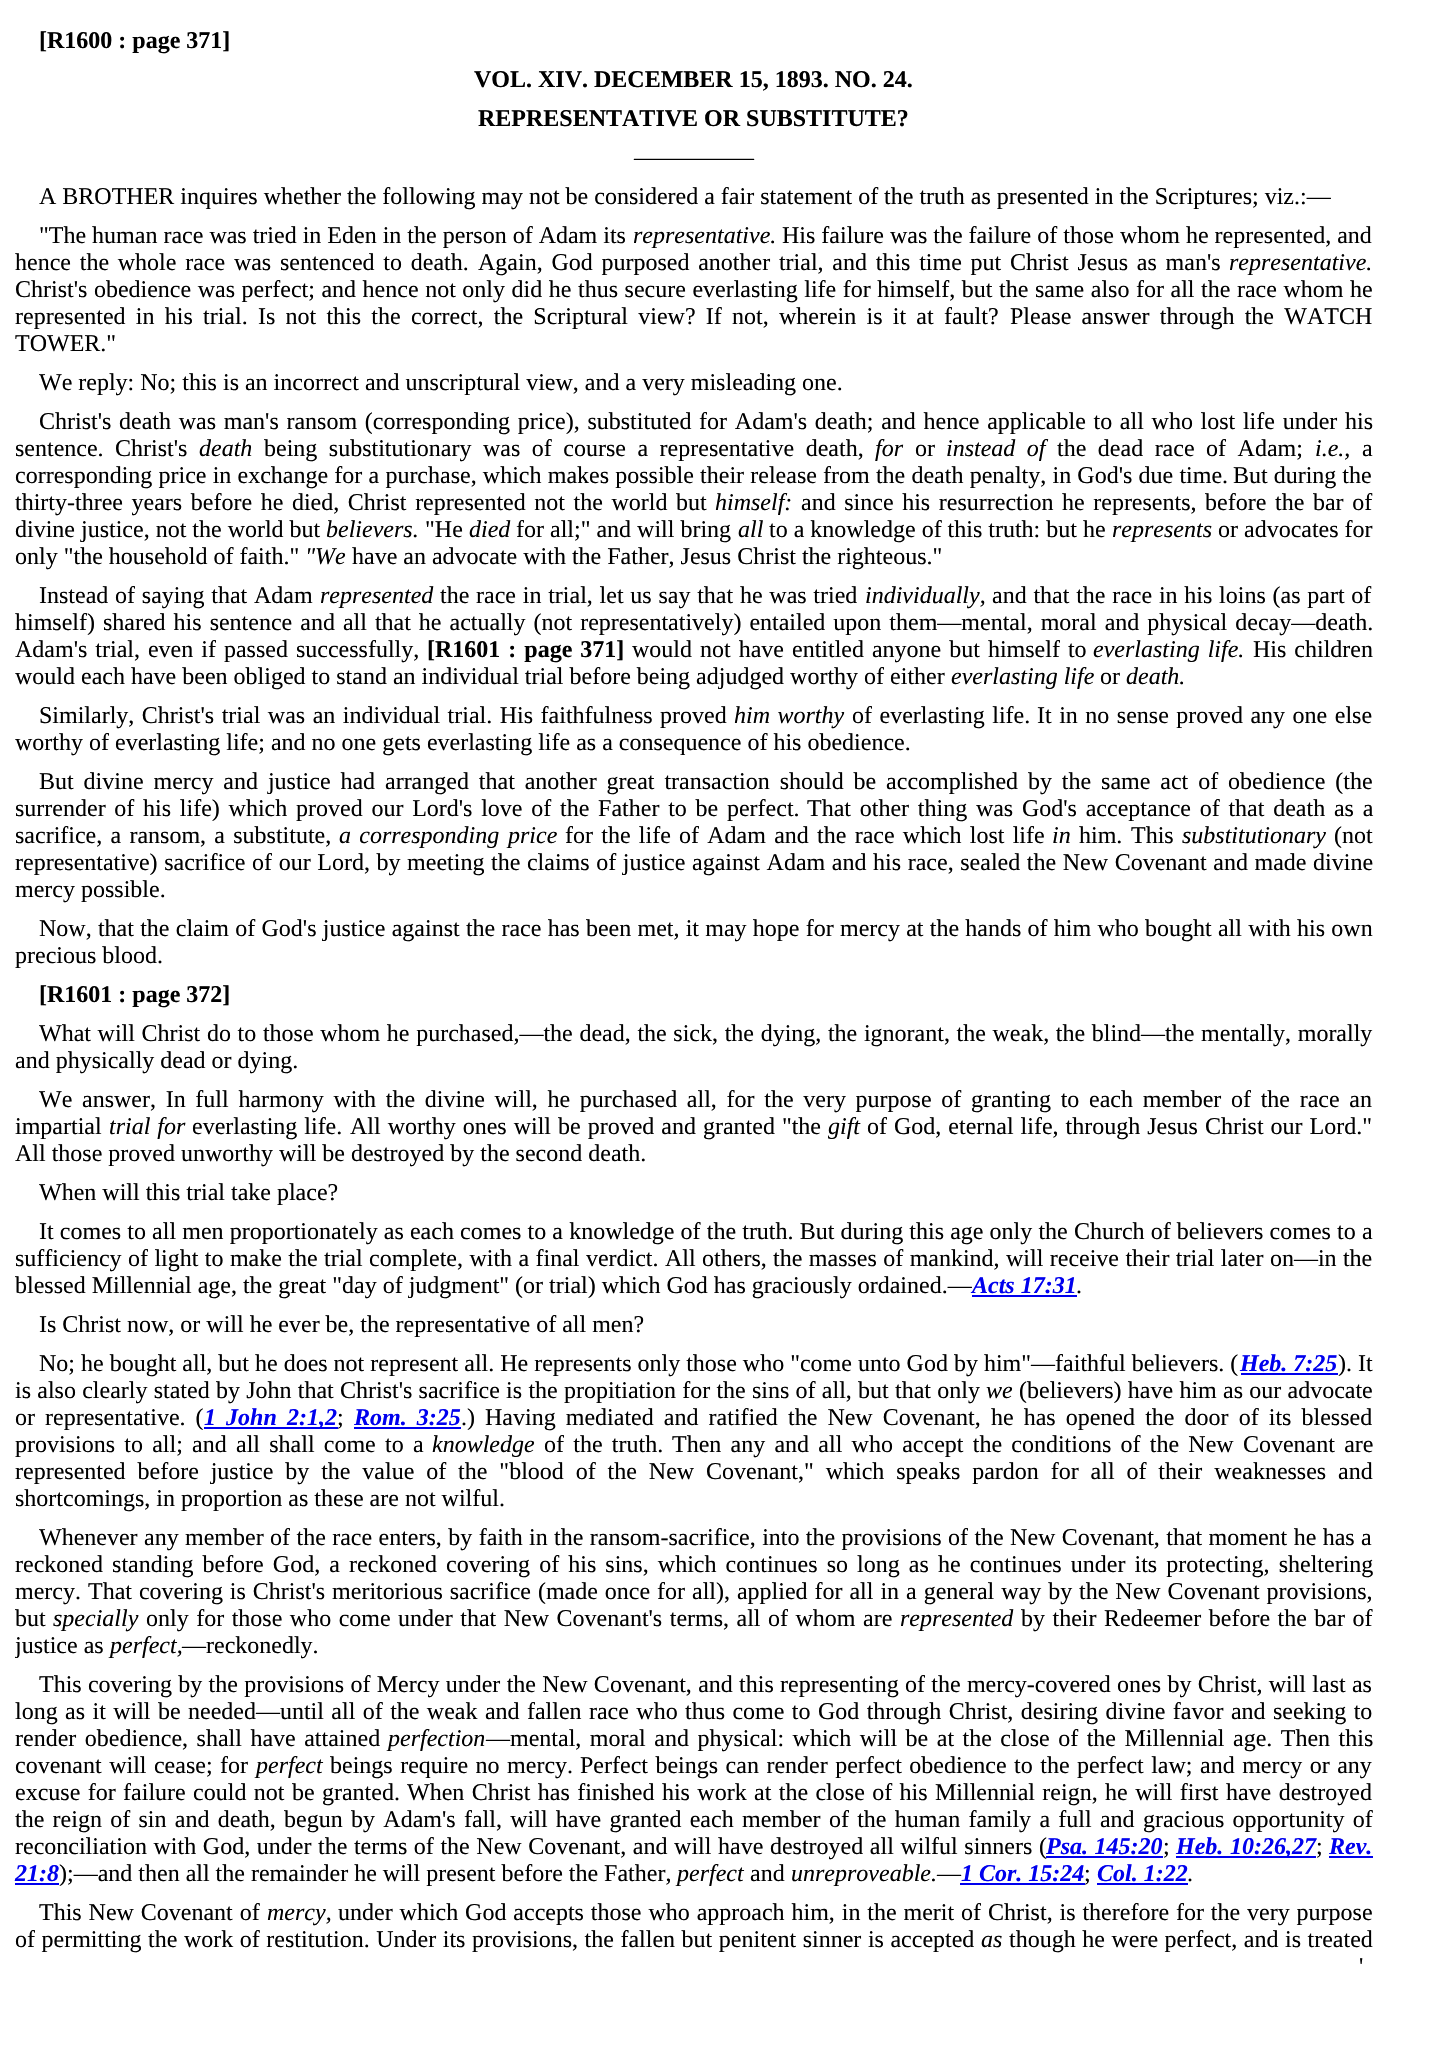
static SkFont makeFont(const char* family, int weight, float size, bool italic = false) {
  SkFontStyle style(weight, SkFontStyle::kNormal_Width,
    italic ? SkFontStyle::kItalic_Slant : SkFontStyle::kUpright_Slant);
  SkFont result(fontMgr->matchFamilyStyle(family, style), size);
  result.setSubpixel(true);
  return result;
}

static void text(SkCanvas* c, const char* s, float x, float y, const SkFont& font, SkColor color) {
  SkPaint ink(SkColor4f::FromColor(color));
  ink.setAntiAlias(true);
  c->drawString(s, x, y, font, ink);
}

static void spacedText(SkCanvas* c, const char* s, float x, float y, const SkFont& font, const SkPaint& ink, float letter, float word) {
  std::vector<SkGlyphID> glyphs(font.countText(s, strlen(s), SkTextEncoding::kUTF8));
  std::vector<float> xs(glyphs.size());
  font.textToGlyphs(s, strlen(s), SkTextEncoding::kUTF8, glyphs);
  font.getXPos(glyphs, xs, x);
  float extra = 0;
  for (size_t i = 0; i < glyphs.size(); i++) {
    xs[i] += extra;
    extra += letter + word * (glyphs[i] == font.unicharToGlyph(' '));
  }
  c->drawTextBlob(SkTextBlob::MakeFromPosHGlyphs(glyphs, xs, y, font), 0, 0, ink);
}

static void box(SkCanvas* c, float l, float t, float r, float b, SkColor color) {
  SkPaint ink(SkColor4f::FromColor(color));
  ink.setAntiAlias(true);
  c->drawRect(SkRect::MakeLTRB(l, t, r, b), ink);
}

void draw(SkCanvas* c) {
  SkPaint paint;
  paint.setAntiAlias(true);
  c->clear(0xffffffff);
  SkFont face1 = makeFont("Liberation Serif", 700, 24);
  text(c, "[R1600 : page 371]", 39, 48, face1, 0xff000000);
  text(c, "VOL. XIV. DECEMBER 15, 1893. NO. 24.", 474, 87, face1, 0xff000000);
  text(c, "REPRESENTATIVE OR SUBSTITUTE?", 478, 126, face1, 0xff000000);
  SkFont face2 = makeFont("Liberation Serif", 400, 24);
  text(c, "—————", 634, 165, face2, 0xff000000);
  text(c, "A BROTHER inquires whether the following may not be considered a fair statement of the truth as presented in the Scriptures; viz.:—", 39, 204, face2, 0xff000000);
  text(c, "\"The human race was tried in Eden in the person of Adam its", 39, 243, face2, 0xff000000);
  SkFont face3 = makeFont("Liberation Serif", 400, 24, true);
  text(c, "representative.", 633, 243, face3, 0xff000000);
  text(c, "His failure was the failure of those whom he represented, and", 782, 243, face2, 0xff000000);
  paint.setColor(0xff000000);
  spacedText(c, "hence the whole race was sentenced to death.", 15, 270, face2, paint, 0, 2.75f);
  spacedText(c, "Again, God purposed another trial, and this time put Christ Jesus as man's", 478, 270, face2, paint, 0, 2.75f);
  text(c, "representative.", 1229, 270, face3, 0xff000000);
  spacedText(c, "Christ's obedience was perfect; and hence not only did he thus secure everlasting life for himself, but the same also for all the race whom he", 15, 297, face2, paint, 0, 0.55f);
  spacedText(c, "represented in his trial. Is not this the correct, the Scriptural view? If not, wherein is it at fault?", 15, 324, face2, paint, 0, 4.25f);
  spacedText(c, "Please answer through the WATCH", 1010, 324, face2, paint, 0, 4.25f);
  text(c, "TOWER.\"", 15, 351, face2, 0xff000000);
  text(c, "We reply: No; this is an incorrect and unscriptural view, and a very misleading one.", 39, 390, face2, 0xff000000);
  spacedText(c, "Christ's death was man's ransom (corresponding price), substituted for Adam's death; and hence applicable to all who lost life under his", 39, 429, face2, paint, 0, 1.7f);
  text(c, "sentence.", 15, 456, face2, 0xff000000);
  text(c, "Christ's", 115, 456, face2, 0xff000000);
  text(c, "death", 199, 456, face3, 0xff000000);
  spacedText(c, "being substitutionary was of course a representative death,", 264, 456, face2, paint, 0, 5.5f);
  text(c, "for", 875, 456, face3, 0xff000000);
  text(c, "or", 915, 456, face2, 0xff000000);
  spacedText(c, "instead of", 946, 456, face3, paint, 0, 5.5f);
  spacedText(c, "the dead race of Adam;", 1057, 456, face2, paint, 0, 5.5f);
  text(c, "i.e.,", 1315, 456, face3, 0xff000000);
  text(c, "a", 1362, 456, face2, 0xff000000);
  spacedText(c, "corresponding price in exchange for a purchase, which makes possible their release from the death penalty, in God's due time.", 15, 483, face2, paint, 0, 0.2f);
  text(c, "But during the", 1233, 483, face2, 0xff000000);
  spacedText(c, "thirty-three years before he died, Christ represented not the world but", 15, 510, face2, paint, 0, 2.6f);
  text(c, "himself:", 715, 510, face3, 0xff000000);
  spacedText(c, "and since his resurrection he represents, before the bar of", 801, 510, face2, paint, 0, 2.6f);
  text(c, "divine justice, not the world but", 15, 537, face2, 0xff000000);
  text(c, "believers.", 326, 537, face3, 0xff000000);
  text(c, "\"He", 425, 537, face2, 0xff000000);
  text(c, "died", 469, 537, face3, 0xff000000);
  text(c, "for all;\" and will bring", 516, 537, face2, 0xff000000);
  text(c, "all", 738, 537, face3, 0xff000000);
  text(c, "to a knowledge of this truth: but he", 769, 537, face2, 0xff000000);
  text(c, "represents", 1112, 537, face3, 0xff000000);
  text(c, "or advocates for", 1218, 537, face2, 0xff000000);
  text(c, "only \"the household of faith.\"", 15, 564, face2, 0xff000000);
  text(c, "\"We", 305, 564, face3, 0xff000000);
  text(c, "have an advocate with the Father, Jesus Christ the righteous.\"", 352, 564, face2, 0xff000000);
  spacedText(c, "Instead of saying that Adam", 39, 603, face2, paint, 0, 0.75f);
  text(c, "represented", 320, 603, face3, 0xff000000);
  spacedText(c, "the race in trial, let us say that he was tried", 440, 603, face2, paint, 0, 0.75f);
  text(c, "individually,", 865, 603, face3, 0xff000000);
  spacedText(c, "and that the race in his loins (as part of", 992, 603, face2, paint, 0, 0.75f);
  spacedText(c, "himself) shared his sentence and all that he actually (not representatively) entailed upon them—mental, moral and physical decay—death.", 15, 630, face2, paint, 0, 2);
  spacedText(c, "Adam's trial, even if passed successfully,", 15, 657, face2, paint, 0, 2);
  spacedText(c, "[R1601 : page 371]", 427, 657, face1, paint, 0, 2);
  spacedText(c, "would not have entitled anyone but himself to", 632, 657, face2, paint, 0, 2);
  spacedText(c, "everlasting life.", 1093, 657, face3, paint, 0, 2);
  spacedText(c, "His children", 1253, 657, face2, paint, 0, 2);
  text(c, "would each have been obliged to stand an individual trial before being adjudged worthy of either", 15, 684, face2, 0xff000000);
  text(c, "everlasting life", 951, 684, face3, 0xff000000);
  text(c, "or", 1100, 684, face2, 0xff000000);
  text(c, "death.", 1126, 684, face3, 0xff000000);
  spacedText(c, "Similarly, Christ's trial was an individual trial. His faithfulness proved", 39, 723, face2, paint, 0, 1.5f);
  spacedText(c, "him worthy", 734, 723, face3, paint, 0, 1.5f);
  spacedText(c, "of everlasting life.", 852, 723, face2, paint, 0, 1.5f);
  spacedText(c, "It in no sense proved any one else", 1037, 723, face2, paint, 0, 1.5f);
  text(c, "worthy of everlasting life; and no one gets everlasting life as a consequence of his obedience.", 15, 750, face2, 0xff000000);
  spacedText(c, "But divine mercy and justice had arranged that another great transaction should be accomplished by the same act of obedience (the", 39, 789, face2, paint, 0, 3.9f);
  spacedText(c, "surrender of his life) which proved our Lord's love of the Father to be perfect.", 15, 816, face2, paint, 0, 2.75f);
  spacedText(c, "That other thing was God's acceptance of that death as a", 807, 816, face2, paint, 0, 2.75f);
  spacedText(c, "sacrifice, a ransom, a substitute,", 15, 843, face2, paint, 0, 2.25f);
  spacedText(c, "a corresponding", 339, 843, face3, paint, 0, 2.25f);
  text(c, "price", 508, 843, face3, 0xff000000);
  spacedText(c, "for the life of Adam and the race which lost life", 565, 843, face2, paint, 0, 2.25f);
  text(c, "in", 1052, 843, face3, 0xff000000);
  text(c, "him.", 1079, 843, face2, 0xff000000);
  text(c, "This", 1131, 843, face2, 0xff000000);
  text(c, "substitutionary", 1182, 843, face3, 0xff000000);
  text(c, "(not", 1334, 843, face2, 0xff000000);
  spacedText(c, "representative) sacrifice of our Lord, by meeting the claims of justice against Adam and his race, sealed the New Covenant and made divine", 15, 870, face2, paint, 0, 0.6f);
  text(c, "mercy possible.", 15, 897, face2, 0xff000000);
  spacedText(c, "Now, that the claim of God's justice against the race has been met, it may hope for mercy at the hands of him who bought all with his own", 39, 936, face2, paint, 0, 0.25f);
  text(c, "precious blood.", 15, 963, face2, 0xff000000);
  text(c, "[R1601 : page 372]", 39, 1002, face1, 0xff000000);
  spacedText(c, "What will Christ do to those whom he purchased,—the dead, the sick, the dying, the ignorant, the weak, the blind—the mentally, morally", 39, 1041, face2, paint, 0, 0.65f);
  text(c, "and physically dead or dying.", 15, 1068, face2, 0xff000000);
  spacedText(c, "We answer, In full harmony with the divine will, he purchased all, for the very purpose of granting to each member of the race an", 39, 1107, face2, paint, 0, 3.7f);
  text(c, "impartial", 15, 1134, face2, 0xff000000);
  spacedText(c, "trial for", 109, 1134, face3, paint, 0, 1);
  spacedText(c, "everlasting life.", 192, 1134, face2, paint, 0, 1);
  spacedText(c, "All worthy ones will be proved and granted \"the", 350, 1134, face2, paint, 0, 1);
  text(c, "gift", 828, 1134, face3, 0xff000000);
  spacedText(c, "of God, eternal life, through Jesus Christ our Lord.\"", 867, 1134, face2, paint, 0, 1);
  text(c, "All those proved unworthy will be destroyed by the second death.", 15, 1161, face2, 0xff000000);
  text(c, "When will this trial take place?", 39, 1200, face2, 0xff000000);
  spacedText(c, "It comes to all men proportionately as each comes to a knowledge of the truth. But during this age only the Church of believers comes to a", 39, 1239, face2, paint, 0, 0.15f);
  spacedText(c, "sufficiency of light to make the trial complete, with a final verdict.", 15, 1266, face2, paint, 0, 0.4f);
  spacedText(c, "All others, the masses of mankind, will receive their trial later on—in the", 665, 1266, face2, paint, 0, 0.4f);
  text(c, "blessed Millennial age, the great \"day of judgment\" (or trial) which God has graciously ordained.—", 15, 1293, face2, 0xff000000);
  SkFont face4 = makeFont("Liberation Serif", 700, 24, true);
  text(c, "Acts 17:31", 972, 1293, face4, 0xff0000ee);
  box(c, 972, 1295, 1077, 1297, 0xff0000ee);
  text(c, ".", 1076, 1293, face2, 0xff000000);
  text(c, "Is Christ now, or will he ever be, the representative of all men?", 39, 1332, face2, 0xff000000);
  text(c, "No; he bought all, but he does not represent all. He represents only those who \"come unto God by him\"—faithful believers. (", 39, 1371, face2, 0xff000000);
  text(c, "Heb. 7:25", 1240, 1371, face4, 0xff0000ee);
  box(c, 1241, 1373, 1338, 1375, 0xff0000ee);
  text(c, "). It", 1338, 1371, face2, 0xff000000);
  spacedText(c, "is also clearly stated by John that Christ's sacrifice is the propitiation for the sins of all, but that only", 15, 1398, face2, paint, 0, 0.25f);
  text(c, "we", 986, 1398, face3, 0xff000000);
  spacedText(c, "(believers) have him as our advocate", 1019, 1398, face2, paint, 0, 0.25f);
  spacedText(c, "or representative. (", 15, 1425, face2, paint, 0, 4);
  box(c, 204, 1427, 338, 1429, 0xff0000ee);
  paint.setColor(0xff0000ee);
  spacedText(c, "1 John 2:1,2", 204, 1425, face4, paint, 0, 4.1f);
  text(c, ";", 337, 1425, face2, 0xff000000);
  spacedText(c, "Rom. 3:25", 354, 1425, face4, paint, 0, 4);
  box(c, 354, 1427, 461, 1429, 0xff0000ee);
  text(c, ".)", 461, 1425, face2, 0xff000000);
  paint.setColor(0xff000000);
  spacedText(c, "Having mediated and ratified the New Covenant, he has opened the door of its blessed", 485, 1425, face2, paint, 0, 4.1f);
  spacedText(c, "provisions to all; and all shall come to a", 15, 1452, face2, paint, 0, 3.25f);
  text(c, "knowledge", 432, 1452, face3, 0xff000000);
  spacedText(c, "of the truth.", 544, 1452, face2, paint, 0, 3.25f);
  spacedText(c, "Then any and all who accept the conditions of the New Covenant are", 672, 1452, face2, paint, 0, 3.25f);
  spacedText(c, "represented before justice by the value of the \"blood of the New Covenant,\" which speaks pardon for all of their weaknesses and", 15, 1479, face2, paint, 0, 5.9f);
  text(c, "shortcomings, in proportion as these are not wilful.", 15, 1506, face2, 0xff000000);
  spacedText(c, "Whenever any member of the race enters, by faith in the ransom-sacrifice, into the provisions of the New Covenant, that moment he has a", 39, 1545, face2, paint, 0, 0.4f);
  spacedText(c, "reckoned standing before God, a reckoned covering of his sins, which continues so long as he continues under its protecting, sheltering", 15, 1572, face2, paint, 0, 3.1f);
  text(c, "mercy.", 15, 1599, face2, 0xff000000);
  spacedText(c, "That covering is Christ's meritorious sacrifice (made once for all), applied for all in a general way by the New Covenant provisions,", 88, 1599, face2, paint, 0, 0.95f);
  text(c, "but", 15, 1626, face2, 0xff000000);
  text(c, "specially", 53, 1626, face3, 0xff000000);
  spacedText(c, "only for those who come under that New Covenant's terms, all of whom are", 146, 1626, face2, paint, 0, 1.5f);
  text(c, "represented", 900, 1626, face3, 0xff000000);
  spacedText(c, "by their Redeemer before the bar of", 1021, 1626, face2, paint, 0, 1.5f);
  c->save();
  c->clipRect(SkRect::MakeLTRB(15, 15, 1385, 1965));
  text(c, "justice as", 15, 1653, face2, 0xff000000);
  c->restore();
  text(c, "perfect,", 110, 1653, face3, 0xff000000);
  text(c, "—reckonedly.", 182, 1653, face2, 0xff000000);
  spacedText(c, "This covering by the provisions of Mercy under the New Covenant, and this representing of the mercy-covered ones by Christ, will last as", 39, 1692, face2, paint, 0, 0.3f);
  spacedText(c, "long as it will be needed—until all of the weak and fallen race who thus come to God through Christ, desiring divine favor and seeking to", 15, 1719, face2, paint, 0, 1.4f);
  spacedText(c, "render obedience, shall have attained", 15, 1746, face2, paint, 0, 2.5f);
  text(c, "perfection", 388, 1746, face3, 0xff000000);
  spacedText(c, "—mental, moral and physical: which will be at the close of the Millennial age. Then this", 486, 1746, face2, paint, 0, 2.5f);
  spacedText(c, "covenant will cease; for", 15, 1773, face2, paint, 0, 1.5f);
  text(c, "perfect", 256, 1773, face3, 0xff000000);
  spacedText(c, "beings require no mercy.", 330, 1773, face2, paint, 0, 1.5f);
  spacedText(c, "Perfect beings can render perfect obedience to the perfect law; and mercy or any", 580, 1773, face2, paint, 0, 1.5f);
  spacedText(c, "excuse for failure could not be granted.", 15, 1800, face2, paint, 0, 1.4f);
  spacedText(c, "When Christ has finished his work at the close of his Millennial reign, he will first have destroyed", 407, 1800, face2, paint, 0, 1.4f);
  spacedText(c, "the reign of sin and death, begun by Adam's fall, will have granted each member of the human family a full and gracious opportunity of", 15, 1827, face2, paint, 0, 2.3f);
  spacedText(c, "reconciliation with God, under the terms of the New Covenant, and will have destroyed all wilful sinners (", 15, 1854, face2, paint, 0, 0.6f);
  paint.setColor(0xff0000ee);
  spacedText(c, "Psa. 145:20", 1046, 1854, face4, paint, 0, 0.6f);
  box(c, 1046, 1856, 1163, 1858, 0xff0000ee);
  text(c, ";", 1163, 1854, face2, 0xff000000);
  box(c, 1176, 1856, 1316, 1858, 0xff0000ee);
  spacedText(c, "Heb. 10:26,27", 1176, 1854, face4, paint, 0, 0.6f);
  text(c, ";", 1316, 1854, face2, 0xff000000);
  text(c, "Rev.", 1329, 1854, face4, 0xff0000ee);
  box(c, 1329, 1856, 1373, 1858, 0xff0000ee);
  text(c, "21:8", 15, 1881, face4, 0xff0000ee);
  box(c, 15, 1883, 59, 1885, 0xff0000ee);
  text(c, ");—and then all the remainder he will present before the Father,", 59, 1881, face2, 0xff000000);
  text(c, "perfect", 677, 1881, face3, 0xff000000);
  text(c, "and", 750, 1881, face2, 0xff000000);
  text(c, "unreproveable.", 791, 1881, face3, 0xff000000);
  text(c, "—", 937, 1881, face2, 0xff000000);
  text(c, "1 Cor. 15:24", 961, 1881, face4, 0xff0000ee);
  box(c, 960, 1883, 1085, 1885, 0xff0000ee);
  text(c, ";", 1084, 1881, face2, 0xff000000);
  text(c, "Col. 1:22", 1097, 1881, face4, 0xff0000ee);
  box(c, 1097, 1883, 1188, 1885, 0xff0000ee);
  text(c, ".", 1187, 1881, face2, 0xff000000);
  paint.setColor(0xff000000);
  spacedText(c, "This New Covenant of", 39, 1920, face2, paint, 0, 0.9f);
  text(c, "mercy,", 267, 1920, face3, 0xff000000);
  spacedText(c, "under which God accepts those who approach him, in the merit of Christ, is therefore for the very purpose", 338, 1920, face2, paint, 0, 0.9f);
  spacedText(c, "of permitting the work of restitution. Under its provisions, the fallen but penitent sinner is accepted", 15, 1947, face2, paint, 0, 0.55f);
  text(c, "as", 981, 1947, face3, 0xff000000);
  spacedText(c, "though he were perfect, and is treated", 1009, 1947, face2, paint, 0, 0.55f);
  spacedText(c, "'", 1359, 1974, face2, paint, 0, 5.5f);
}
